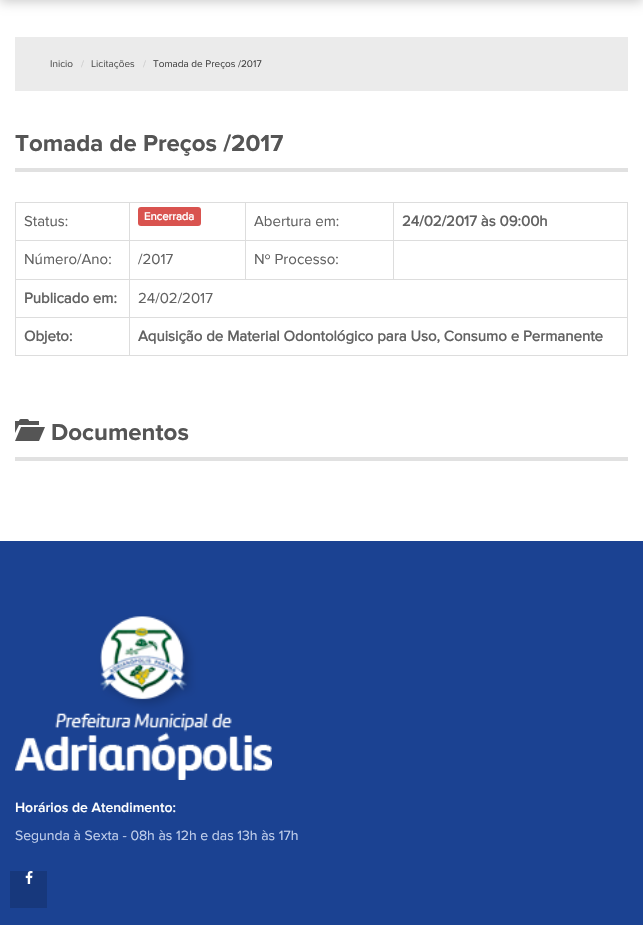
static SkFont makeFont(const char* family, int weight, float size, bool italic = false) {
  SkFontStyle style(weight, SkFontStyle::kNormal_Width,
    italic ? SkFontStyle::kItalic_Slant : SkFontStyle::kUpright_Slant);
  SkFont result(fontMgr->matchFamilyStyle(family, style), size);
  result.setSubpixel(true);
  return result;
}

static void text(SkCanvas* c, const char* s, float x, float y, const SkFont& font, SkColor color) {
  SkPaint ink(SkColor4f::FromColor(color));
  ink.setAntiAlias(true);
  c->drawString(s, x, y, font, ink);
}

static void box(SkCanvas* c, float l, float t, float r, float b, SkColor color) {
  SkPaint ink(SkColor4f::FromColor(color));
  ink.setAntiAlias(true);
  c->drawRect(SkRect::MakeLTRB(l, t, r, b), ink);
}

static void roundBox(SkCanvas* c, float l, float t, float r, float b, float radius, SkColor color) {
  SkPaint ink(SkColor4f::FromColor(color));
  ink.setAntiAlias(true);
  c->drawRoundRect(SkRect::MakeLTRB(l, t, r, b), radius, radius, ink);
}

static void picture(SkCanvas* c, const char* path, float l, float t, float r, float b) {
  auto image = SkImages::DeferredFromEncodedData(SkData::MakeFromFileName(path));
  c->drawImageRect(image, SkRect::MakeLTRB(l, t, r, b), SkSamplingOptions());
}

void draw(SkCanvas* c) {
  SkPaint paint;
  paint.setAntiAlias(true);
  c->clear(0xffffffff);
  paint.setColor(0x33000000);
  paint.setMaskFilter(SkMaskFilter::MakeBlur(kNormal_SkBlurStyle, 6));
  c->drawRect(SkRect::MakeLTRB(0, -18, 643, 2), paint);
  paint.setMaskFilter(nullptr);
  box(c, 15, 37, 628, 91, 0xffebebeb);
  SkFont face1 = makeFont("Proxima Nova", 400, 10);
  text(c, "Inicio", 50, 67, face1, 0xff555555);
  text(c, "/", 81, 67, face1, 0xffcccccc);
  text(c, "Licitações", 91, 67, face1, 0xff555555);
  text(c, "/", 143, 67, face1, 0xffcccccc);
  text(c, "Tomada de Preços /2017", 153, 67, face1, 0xff444444);
  box(c, 15, 168, 628, 172, 0xffe1e1e1);
  SkFont face2 = makeFont("Proxima Nova", 700, 24);
  text(c, "Tomada de Preços /2017", 15, 151, face2, 0xff555555);
  box(c, 15, 202, 628, 203, 0xffdddddd);
  box(c, 627, 202, 628, 356, 0xffdddddd);
  box(c, 15, 355, 628, 356, 0xffdddddd);
  box(c, 15, 202, 16, 356, 0xffdddddd);
  SkFont face3 = makeFont("Proxima Nova", 400, 15);
  text(c, "Status:", 24, 226, face3, 0xff626262);
  box(c, 393, 240, 628, 241, 0xffdddddd);
  box(c, 129, 279, 628, 280, 0xffdddddd);
  box(c, 393, 240, 394, 280, 0xffdddddd);
  box(c, 245, 240, 394, 241, 0xffdddddd);
  box(c, 245, 240, 246, 280, 0xffdddddd);
  box(c, 129, 240, 246, 241, 0xffdddddd);
  box(c, 129, 317, 628, 318, 0xffdddddd);
  box(c, 129, 317, 130, 356, 0xffdddddd);
  box(c, 15, 317, 130, 318, 0xffdddddd);
  box(c, 129, 279, 130, 318, 0xffdddddd);
  box(c, 15, 279, 130, 280, 0xffdddddd);
  box(c, 129, 240, 130, 280, 0xffdddddd);
  box(c, 15, 240, 130, 241, 0xffdddddd);
  box(c, 129, 202, 130, 241, 0xffdddddd);
  roundBox(c, 138, 207, 201, 226, 3, 0xffd9534f);
  SkFont face4 = makeFont("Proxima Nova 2", 700, 11.25f);
  text(c, "Encerrada", 144, 220, face4, 0xffffffff);
  box(c, 245, 202, 246, 241, 0xffdddddd);
  text(c, "Abertura em:", 254, 226, face3, 0xff626262);
  box(c, 393, 202, 394, 241, 0xffdddddd);
  SkFont face5 = makeFont("Proxima Nova 2", 700, 15);
  text(c, "24/02/2017 às 09:00h", 402, 226, face5, 0xff626262);
  text(c, "Número/Ano:", 24, 264, face3, 0xff626262);
  text(c, "/2017", 138, 264, face3, 0xff626262);
  text(c, "Nº Processo:", 254, 264, face3, 0xff626262);
  text(c, "Publicado em:", 24, 303, face5, 0xff626262);
  text(c, "24/02/2017", 138, 303, face3, 0xff626262);
  text(c, "Objeto:", 24, 341, face5, 0xff626262);
  text(c, "Aquisição de Material Odontológico para Uso, Consumo e Permanente", 138, 341, face5, 0xff626262);
  box(c, 15, 457, 628, 461, 0xffe1e1e1);
  picture(c, "img_01.png", 15, 419, 45, 441);
  text(c, "Documentos", 51, 440, face2, 0xff555555);
  box(c, 0, 541, 643, 925, 0xff1b4292);
  picture(c, "img_02.png", 15, 615, 272, 780);
  SkFont face6 = makeFont("Proxima Nova", 600, 14);
  text(c, "Horários de Atendimento:", 15, 812, face6, 0xffffffff);
  SkFont face7 = makeFont("Proxima Nova", 400, 14);
  text(c, "Segunda à Sexta - 08h às 12h e das 13h às 17h", 15, 840, face7, 0xffc1cfeb);
  box(c, 10, 871, 47, 908, 0xff17387c);
  picture(c, "img_03.png", 25, 871, 33, 884);
}
